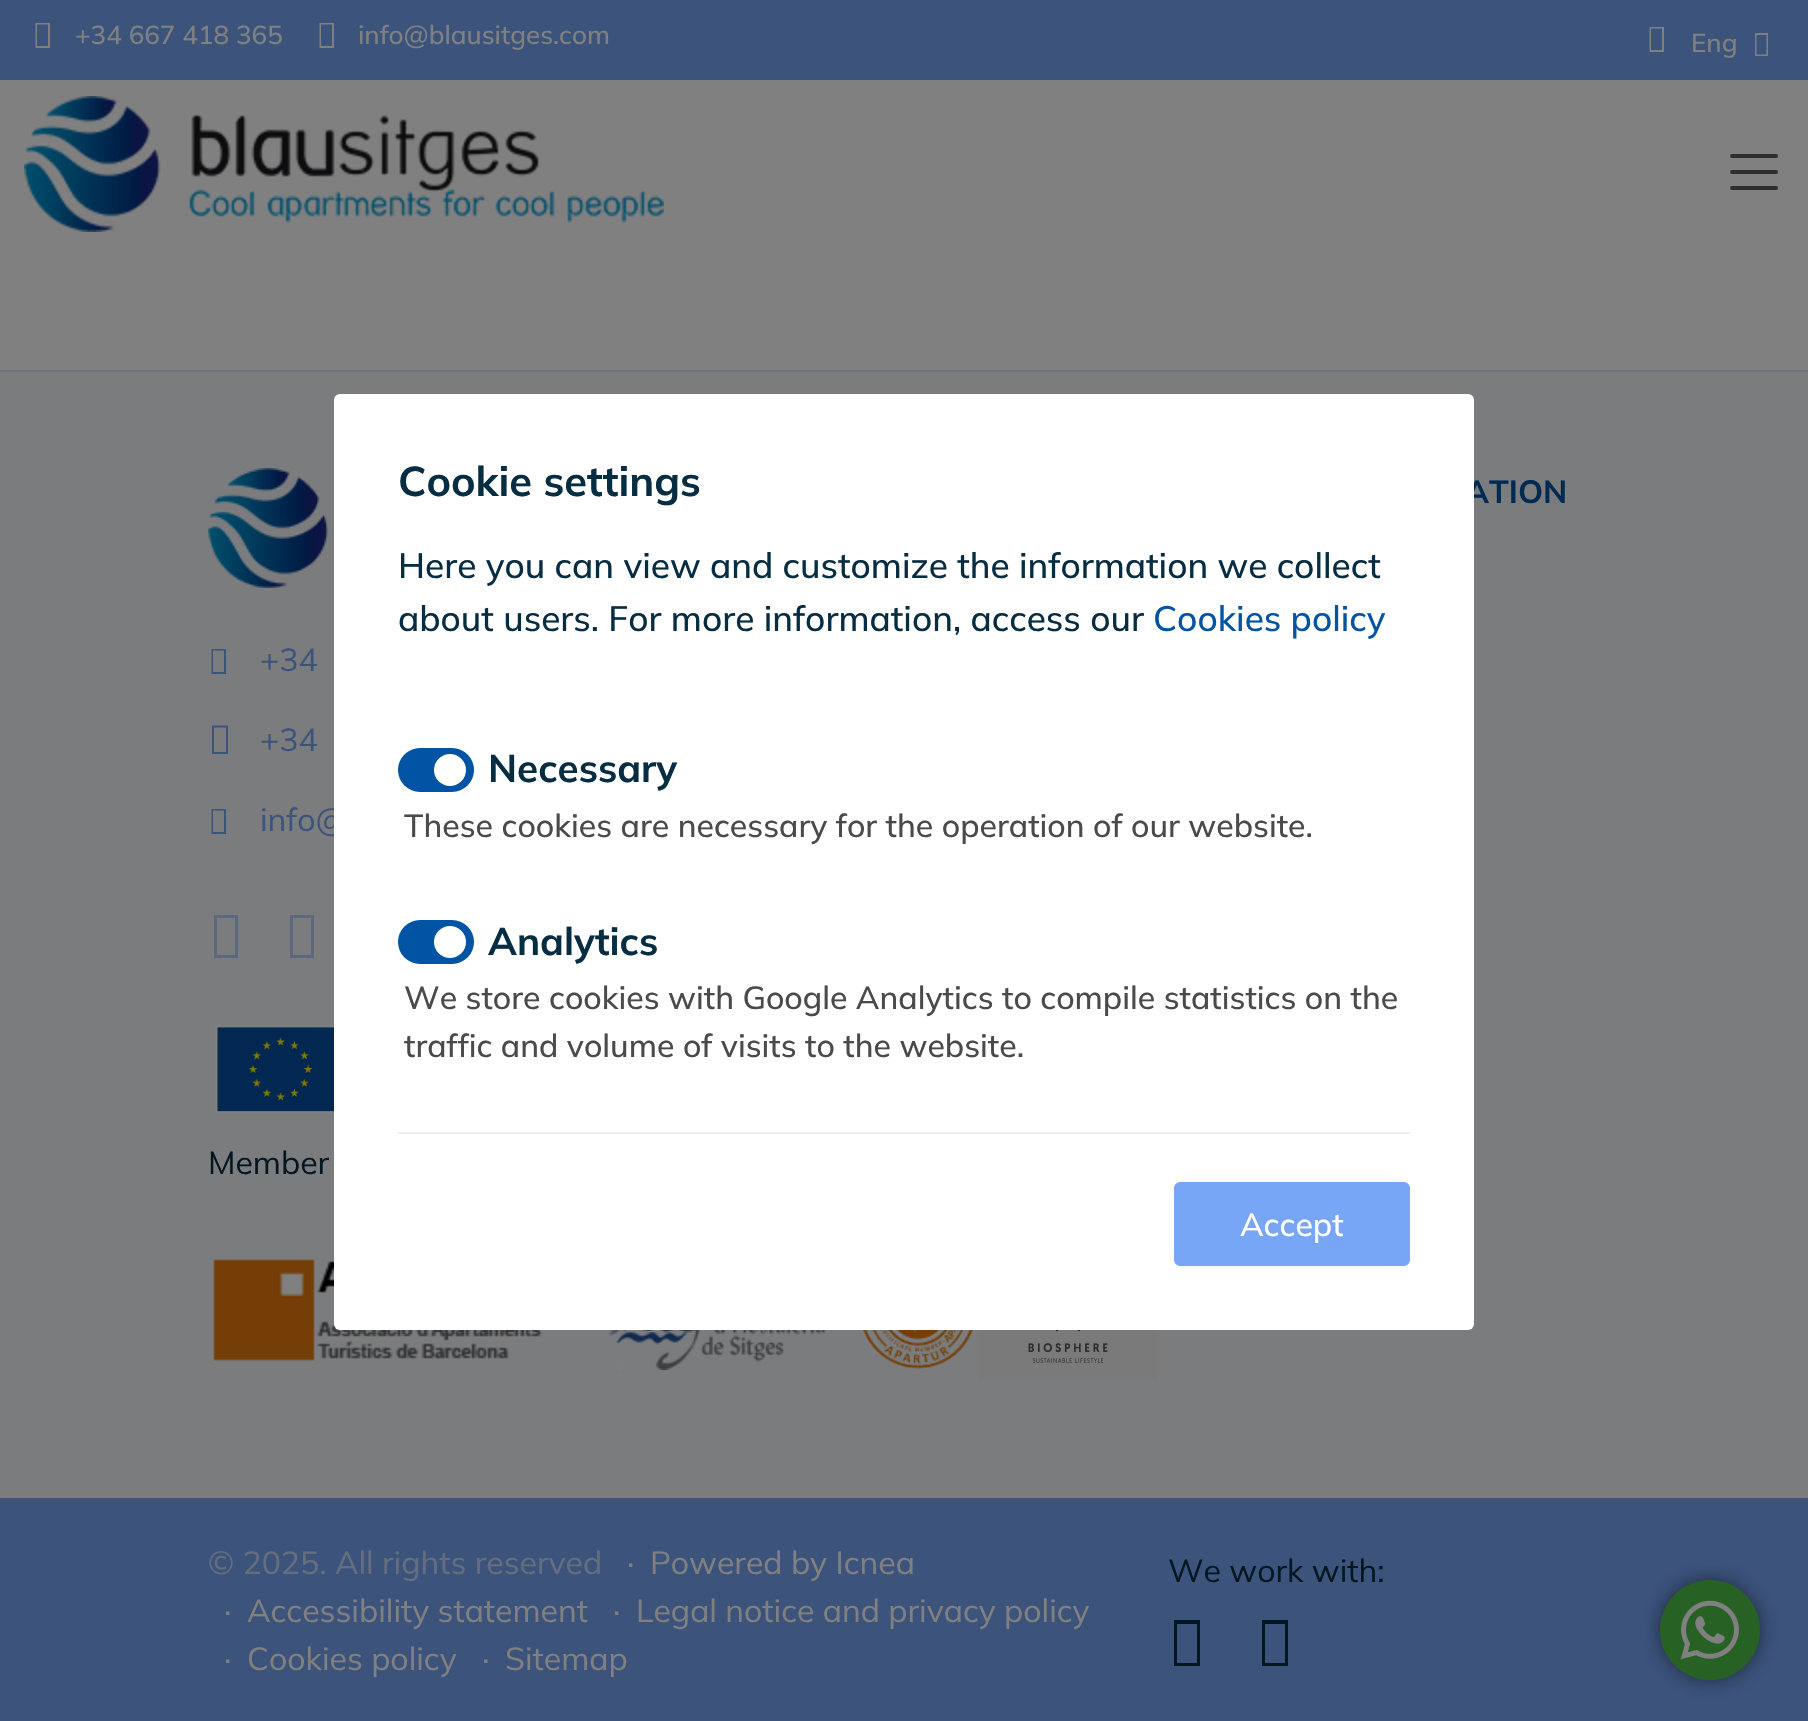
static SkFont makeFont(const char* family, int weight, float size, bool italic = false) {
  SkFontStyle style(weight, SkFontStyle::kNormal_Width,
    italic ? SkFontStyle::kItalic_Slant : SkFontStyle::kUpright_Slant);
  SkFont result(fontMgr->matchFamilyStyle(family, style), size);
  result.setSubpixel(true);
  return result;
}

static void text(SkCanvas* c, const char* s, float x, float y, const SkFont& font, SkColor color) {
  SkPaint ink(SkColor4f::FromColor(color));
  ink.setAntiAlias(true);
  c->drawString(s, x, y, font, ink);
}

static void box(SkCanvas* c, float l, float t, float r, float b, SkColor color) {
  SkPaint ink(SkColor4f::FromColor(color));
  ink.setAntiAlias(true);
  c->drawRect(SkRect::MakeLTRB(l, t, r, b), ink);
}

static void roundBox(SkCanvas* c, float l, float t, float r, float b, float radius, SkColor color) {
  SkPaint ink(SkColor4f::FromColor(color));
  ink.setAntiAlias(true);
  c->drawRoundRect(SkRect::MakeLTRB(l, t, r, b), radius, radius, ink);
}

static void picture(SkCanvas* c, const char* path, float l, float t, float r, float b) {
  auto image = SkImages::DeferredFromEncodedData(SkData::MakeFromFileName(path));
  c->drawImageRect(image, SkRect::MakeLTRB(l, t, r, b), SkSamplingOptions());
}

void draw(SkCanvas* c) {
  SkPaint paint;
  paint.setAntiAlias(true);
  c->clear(0xff808080);
  box(c, 0, 0, 1808, 80, 0xff3c537c);
  paint.setColor(0xff808080);
  c->drawPath(SkPathBuilder().moveTo(35.5f, 48).lineTo(35.5f, 23).lineTo(50, 23).lineTo(50, 48).close().moveTo(37, 46).lineTo(48, 46).lineTo(48, 24.5f).lineTo(37, 24.5f).close().detach(), paint);
  SkFont face1 = makeFont("Mulish", 500, 26);
  text(c, "+34 667 418 365", 75, 44, face1, 0xff808080);
  c->drawPath(SkPathBuilder().moveTo(319.5f, 48).lineTo(319.5f, 23).lineTo(334, 23).lineTo(334, 48).close().moveTo(321, 46).lineTo(332, 46).lineTo(332, 24.5f).lineTo(321, 24.5f).close().detach(), paint);
  text(c, "info@blausitges.com", 358, 44, face1, 0xff808080);
  c->drawPath(SkPathBuilder().moveTo(1649.5f, 52).lineTo(1649.5f, 27).lineTo(1664, 27).lineTo(1664, 52).close().moveTo(1651, 50).lineTo(1662, 50).lineTo(1662, 28.5f).lineTo(1651, 28.5f).close().detach(), paint);
  text(c, "Eng", 1691, 52, face1, 0xff808080);
  c->drawPath(SkPathBuilder().moveTo(1755, 56).lineTo(1755, 33).lineTo(1768, 33).lineTo(1768, 56).close().moveTo(1756.5f, 54.5f).lineTo(1766.5f, 54.5f).lineTo(1766.5f, 35).lineTo(1756.5f, 35).close().detach(), paint);
  picture(c, "img_01.png", 24, 96, 664, 232);
  paint.setStyle(SkPaint::kStroke_Style);
  paint.setStrokeWidth(4);
  paint.setStrokeCap(SkPaint::kRound_Cap);
  paint.setColor(0xff2d2e30);
  c->drawPath(SkPathBuilder().moveTo(1732, 156).lineTo(1776, 156).moveTo(1732, 172).lineTo(1776, 172).moveTo(1732, 188).lineTo(1776, 188).detach(), paint);
  box(c, 0, 372, 1808, 1498, 0xff7b7c7e);
  box(c, 0, 370, 1808, 372, 0xff6a727e);
  SkFont face2 = makeFont("Mulish", 700, 32);
  text(c, "ATION", 1465, 503, face2, 0xff002a52);
  picture(c, "img_02.png", 208, 468, 329, 588);
  paint.setStyle(SkPaint::kFill_Style);
  paint.setColor(0xff3c537c);
  c->drawPath(SkPathBuilder().moveTo(211.5f, 674).lineTo(211.5f, 649).lineTo(226, 649).lineTo(226, 674).close().moveTo(213, 672).lineTo(224, 672).lineTo(224, 650.5f).lineTo(213, 650.5f).close().detach(), paint);
  SkFont face3 = makeFont("Mulish", 400, 32);
  text(c, "+34", 260, 671, face3, 0xff3c537c);
  c->drawPath(SkPathBuilder().moveTo(212, 754).lineTo(212, 725.5f).lineTo(228, 725.5f).lineTo(228, 754).close().moveTo(214, 752).lineTo(226, 752).lineTo(226, 727.5f).lineTo(214, 727.5f).close().detach(), paint);
  text(c, "+34", 260, 751, face3, 0xff3c537c);
  c->drawPath(SkPathBuilder().moveTo(211.5f, 834).lineTo(211.5f, 809).lineTo(226, 809).lineTo(226, 834).close().moveTo(213, 832).lineTo(224, 832).lineTo(224, 810.5f).lineTo(213, 810.5f).close().detach(), paint);
  text(c, "info@", 260, 831, face3, 0xff3c537c);
  paint.setColor(0xff5c687d);
  c->drawPath(SkPathBuilder().moveTo(214, 958).lineTo(214, 915).lineTo(238, 915).lineTo(238, 958).close().moveTo(217, 955).lineTo(235, 955).lineTo(235, 918).lineTo(217, 918).close().detach(), paint);
  c->drawPath(SkPathBuilder().moveTo(290, 958).lineTo(290, 915).lineTo(314, 915).lineTo(314, 958).close().moveTo(293, 955).lineTo(311, 955).lineTo(311, 918).lineTo(293, 918).close().detach(), paint);
  picture(c, "img_03.png", 215, 1025, 334, 1114);
  text(c, "Member", 208, 1174, face3, 0xff041721);
  picture(c, "img_04.png", 213, 1259, 543, 1361);
  picture(c, "img_05.png", 608, 1330, 826, 1370);
  picture(c, "img_06.png", 863, 1330, 973, 1369);
  picture(c, "img_07.png", 978, 1330, 1158, 1380);
  box(c, 0, 1498, 1808, 1721, 0xff3c537c);
  text(c, "© 2025. All rights reserved", 208, 1574, face3, 0xff656e7e);
  text(c, "·", 627, 1574, face3, 0xff808080);
  text(c, "Powered by Icnea", 650, 1574, face3, 0xff808080);
  text(c, "·", 224, 1622, face3, 0xff808080);
  text(c, "Accessibility statement", 247, 1622, face3, 0xff808080);
  text(c, "·", 613, 1622, face3, 0xff808080);
  text(c, "Legal notice and privacy policy", 636, 1622, face3, 0xff808080);
  text(c, "·", 224, 1670, face3, 0xff808080);
  text(c, "Cookies policy", 247, 1670, face3, 0xff808080);
  text(c, "·", 482, 1670, face3, 0xff808080);
  text(c, "Sitemap", 505, 1670, face3, 0xff808080);
  text(c, "We work with:", 1168, 1582, face3, 0xff041721);
  paint.setColor(0xff041721);
  c->drawPath(SkPathBuilder().moveTo(1174, 1666).lineTo(1174, 1620).lineTo(1200, 1620).lineTo(1200, 1666).close().moveTo(1177, 1663).lineTo(1197, 1663).lineTo(1197, 1624).lineTo(1177, 1624).close().detach(), paint);
  c->drawPath(SkPathBuilder().moveTo(1262, 1666).lineTo(1262, 1620).lineTo(1288, 1620).lineTo(1288, 1666).close().moveTo(1265, 1663).lineTo(1285, 1663).lineTo(1285, 1624).lineTo(1265, 1624).close().detach(), paint);
  roundBox(c, 334, 394, 1474, 1330, 6, 0xffffffff);
  SkFont face4 = makeFont("Mulish", 700, 41.5f);
  text(c, "Cookie settings", 398, 496, face4, 0xff072d42);
  box(c, 398, 1132, 1410, 1134, 0xffeeeeee);
  SkFont face5 = makeFont("Mulish", 500, 35.2f);
  text(c, "Here you can view and customize the information we collect", 398, 578, face5, 0xff072d42);
  text(c, "about users. For more information, access our", 398, 631, face5, 0xff072d42);
  text(c, "Cookies policy", 1153, 631, face5, 0xff0054a3);
  roundBox(c, 398, 748, 474, 792, 22, 0xff0054a3);
  paint.setColor(0xffffffff);
  c->drawCircle(450, 770, 16, paint);
  SkFont face6 = makeFont("Mulish", 700, 38.5f);
  text(c, "Necessary", 488, 782, face6, 0xff072d42);
  SkFont face7 = makeFont("Mulish", 500, 32);
  text(c, "These cookies are necessary for the operation of our website.", 404, 837, face7, 0xff4a4a4a);
  roundBox(c, 398, 920, 474, 964, 22, 0xff0054a3);
  c->drawCircle(450, 942, 16, paint);
  text(c, "Analytics", 488, 955, face6, 0xff072d42);
  text(c, "We store cookies with Google Analytics to compile statistics on the", 404, 1009, face7, 0xff4a4a4a);
  text(c, "traffic and volume of visits to the website.", 404, 1057, face7, 0xff4a4a4a);
  paint.setColor(0xff77a6f7);
  c->drawRoundRect(SkRect::MakeLTRB(1175, 1183, 1409, 1265), 5, 5, paint);
  paint.setStyle(SkPaint::kStroke_Style);
  paint.setStrokeWidth(2);
  paint.setStrokeCap(SkPaint::kButt_Cap);
  c->drawRoundRect(SkRect::MakeLTRB(1175, 1183, 1409, 1265), 5, 5, paint);
  text(c, "Accept", 1240, 1236, face7, 0xffffffff);
  paint.setStyle(SkPaint::kFill_Style);
  paint.setColor(0x80000000);
  paint.setMaskFilter(SkMaskFilter::MakeBlur(kNormal_SkBlurStyle, 10));
  c->drawRoundRect(SkRect::MakeLTRB(1660, 1580, 1760, 1680), 50, 50, paint);
  paint.setMaskFilter(nullptr);
  paint.setColor(0xff276124);
  c->drawCircle(1710, 1630, 50, paint);
  picture(c, "img_08.png", 1680, 1600, 1739, 1660);
}
